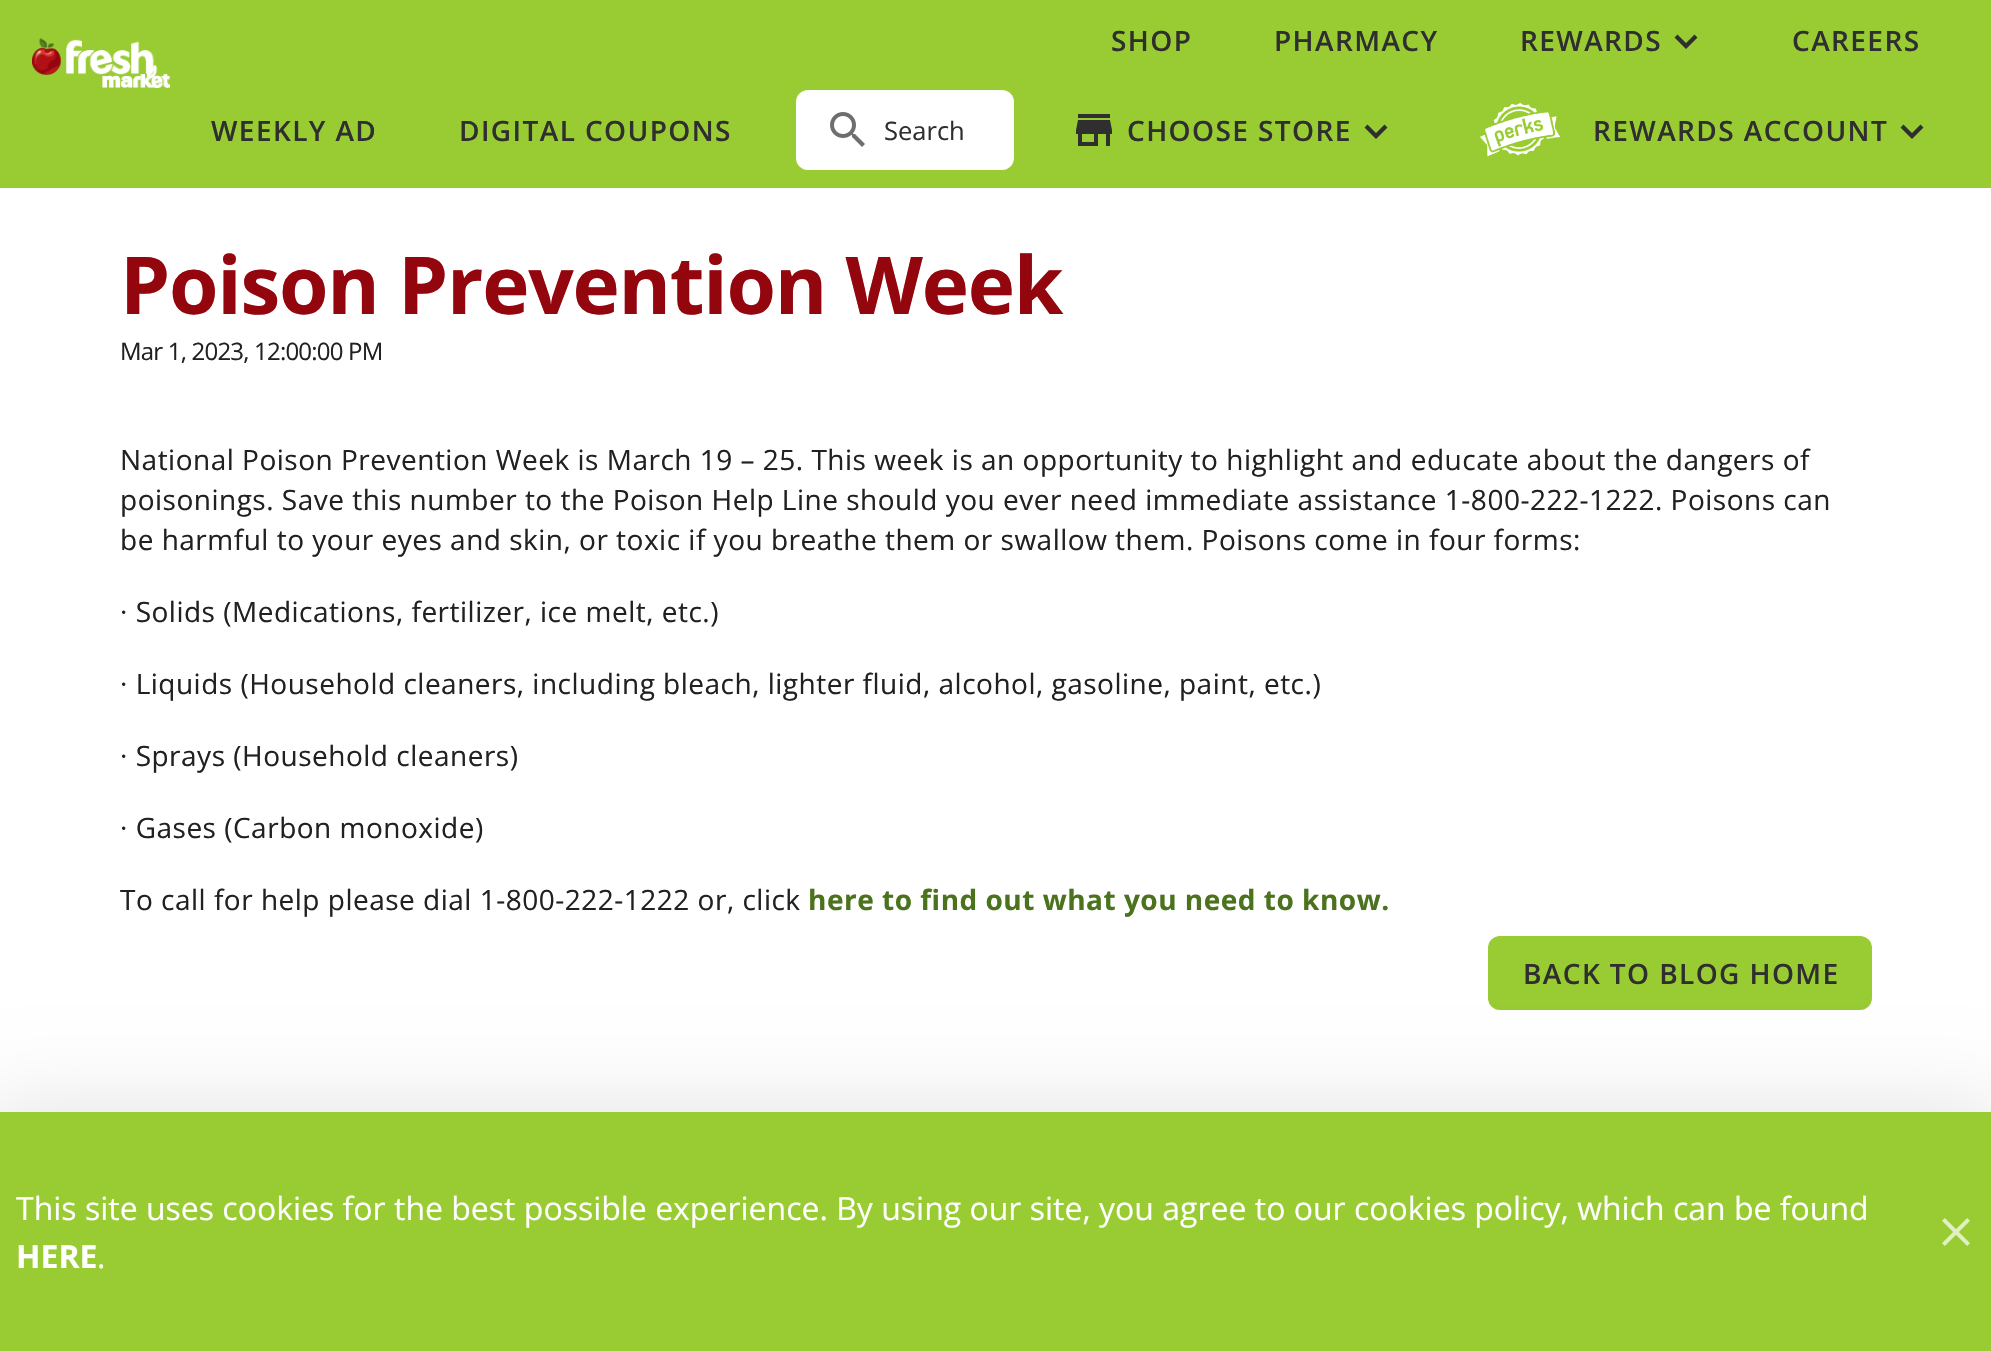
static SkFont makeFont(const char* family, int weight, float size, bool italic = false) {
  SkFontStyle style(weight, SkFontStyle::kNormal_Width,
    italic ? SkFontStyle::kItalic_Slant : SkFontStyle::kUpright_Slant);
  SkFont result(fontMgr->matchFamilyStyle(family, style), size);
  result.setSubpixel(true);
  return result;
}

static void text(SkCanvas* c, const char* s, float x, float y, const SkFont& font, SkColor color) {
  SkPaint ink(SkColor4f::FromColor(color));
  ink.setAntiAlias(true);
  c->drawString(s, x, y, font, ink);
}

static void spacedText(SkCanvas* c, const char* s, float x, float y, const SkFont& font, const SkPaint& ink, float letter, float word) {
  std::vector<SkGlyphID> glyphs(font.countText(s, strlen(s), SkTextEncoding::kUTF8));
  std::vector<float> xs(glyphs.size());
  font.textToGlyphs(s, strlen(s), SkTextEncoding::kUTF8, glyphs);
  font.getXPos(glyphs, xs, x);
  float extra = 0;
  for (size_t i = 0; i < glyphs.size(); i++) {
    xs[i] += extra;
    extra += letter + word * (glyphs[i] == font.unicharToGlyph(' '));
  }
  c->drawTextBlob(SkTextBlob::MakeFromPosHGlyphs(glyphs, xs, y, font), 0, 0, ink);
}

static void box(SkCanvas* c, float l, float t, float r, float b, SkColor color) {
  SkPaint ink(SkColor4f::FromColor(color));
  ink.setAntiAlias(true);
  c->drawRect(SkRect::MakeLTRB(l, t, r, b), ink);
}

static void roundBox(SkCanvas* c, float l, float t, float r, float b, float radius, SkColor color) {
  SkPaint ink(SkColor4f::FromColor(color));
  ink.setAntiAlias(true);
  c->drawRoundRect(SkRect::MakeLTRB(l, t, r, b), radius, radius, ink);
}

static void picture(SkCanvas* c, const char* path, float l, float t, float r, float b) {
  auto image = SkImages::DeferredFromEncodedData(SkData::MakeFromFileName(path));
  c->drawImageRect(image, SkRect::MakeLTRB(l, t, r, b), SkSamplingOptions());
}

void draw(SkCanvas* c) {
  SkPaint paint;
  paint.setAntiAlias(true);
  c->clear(0xffffffff);
  box(c, 0, 0, 1991, 188, 0xff99cc33);
  SkFont face1 = makeFont("Open Sans", 600, 28);
  paint.setColor(0xff2f2f2f);
  spacedText(c, "SHOP", 1111, 51, face1, paint, 1.4f, 0);
  spacedText(c, "PHARMACY", 1274, 51, face1, paint, 1.4f, 0);
  spacedText(c, "REWARDS", 1520, 51, face1, paint, 1.4f, 0);
  c->drawPath(SkPathBuilder().moveTo(1694.5f, 34.5f).lineTo(1686, 43).lineTo(1677.5f, 34.5f).lineTo(1674.5f, 37.5f).lineTo(1686, 49).lineTo(1697.5f, 37.5f).close().detach(), paint);
  spacedText(c, "CAREERS", 1792, 51, face1, paint, 1.4f, 0);
  picture(c, "img_01.png", 32, 38, 170, 88);
  spacedText(c, "WEEKLY AD", 211, 141, face1, paint, 1.4f, 0);
  spacedText(c, "DIGITAL COUPONS", 459, 141, face1, paint, 1.4f, 0);
  roundBox(c, 796, 90, 1014, 170, 12, 0xffffffff);
  picture(c, "img_02.png", 830, 112, 865, 147);
  SkFont face2 = makeFont("Open Sans", 400, 25.5f);
  text(c, "Search", 884, 140, face2, 0xff2f2f2f);
  picture(c, "img_03.png", 1076, 114, 1112, 146);
  spacedText(c, "CHOOSE STORE", 1127, 141, face1, paint, 1.4f, 0);
  c->drawPath(SkPathBuilder().moveTo(1384.5f, 124.5f).lineTo(1376, 133).lineTo(1367.5f, 124.5f).lineTo(1364.5f, 127.5f).lineTo(1376, 139).lineTo(1387.5f, 127.5f).close().detach(), paint);
  picture(c, "img_04.png", 1480, 102, 1560, 157);
  spacedText(c, "REWARDS ACCOUNT", 1593, 141, face1, paint, 1.4f, 0);
  c->drawPath(SkPathBuilder().moveTo(1920.5f, 124.5f).lineTo(1912, 133).lineTo(1903.5f, 124.5f).lineTo(1900.5f, 127.5f).lineTo(1912, 139).lineTo(1923.5f, 127.5f).close().detach(), paint);
  SkFont face3 = makeFont("Open Sans", 700, 80);
  paint.setColor(0xff94060d);
  spacedText(c, "Poison Prevention Week", 120, 314, face3, paint, -1.25f, 0);
  SkFont face4 = makeFont("Open Sans", 400, 24);
  paint.setColor(0xff212121);
  spacedText(c, "Mar 1, 2023, 12:00:00 PM", 120, 360, face4, paint, -0.8f, 0);
  SkFont face5 = makeFont("Open Sans", 400, 28);
  spacedText(c, "National Poison Prevention Week is March 19 – 25. This week is an opportunity to highlight and educate about the dangers of", 120, 470, face5, paint, 0.5f, 0);
  spacedText(c, "poisonings. Save this number to the Poison Help Line should you ever need immediate assistance 1-800-222-1222. Poisons can", 120, 510, face5, paint, 0.5f, 0);
  spacedText(c, "be harmful to your eyes and skin, or toxic if you breathe them or swallow them. Poisons come in four forms:", 120, 550, face5, paint, 0.5f, 0);
  spacedText(c, "· Solids (Medications, fertilizer, ice melt, etc.)", 120, 622, face5, paint, 0.5f, 0);
  spacedText(c, "· Liquids (Household cleaners, including bleach, lighter fluid, alcohol, gasoline, paint, etc.)", 120, 694, face5, paint, 0.5f, 0);
  spacedText(c, "· Sprays (Household cleaners)", 120, 766, face5, paint, 0.5f, 0);
  spacedText(c, "· Gases (Carbon monoxide)", 120, 838, face5, paint, 0.5f, 0);
  spacedText(c, "To call for help please dial 1-800-222-1222 or, click", 120, 910, face5, paint, 0.5f, 0);
  SkFont face6 = makeFont("Open Sans", 700, 28);
  paint.setColor(0xff4b731d);
  spacedText(c, "here to find out what you need to know.", 808, 910, face6, paint, 0.5f, 0);
  roundBox(c, 1488, 936, 1872, 1010, 12, 0xff99cc33);
  paint.setColor(0xff2f2f2f);
  spacedText(c, "BACK TO BLOG HOME", 1523, 984, face1, paint, 1.4f, 0);
  paint.setColor(0x1f000000);
  paint.setMaskFilter(SkMaskFilter::MakeBlur(kNormal_SkBlurStyle, 46));
  c->drawRect(SkRect::MakeLTRB(-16, 1114, 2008, 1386), paint);
  paint.setMaskFilter(nullptr);
  box(c, 0, 1112, 1991, 1351, 0xff99cc33);
  SkFont face7 = makeFont("Open Sans", 400, 32);
  text(c, "This site uses cookies for the best possible experience. By using our site, you agree to our cookies policy, which can be found", 16, 1220, face7, 0xffffffff);
  SkFont face8 = makeFont("Open Sans", 700, 32);
  text(c, "HERE", 16, 1268, face8, 0xffffffff);
  text(c, ".", 97, 1268, face7, 0xffffffff);
  picture(c, "img_05.png", 1942, 1218, 1970, 1246);
}
